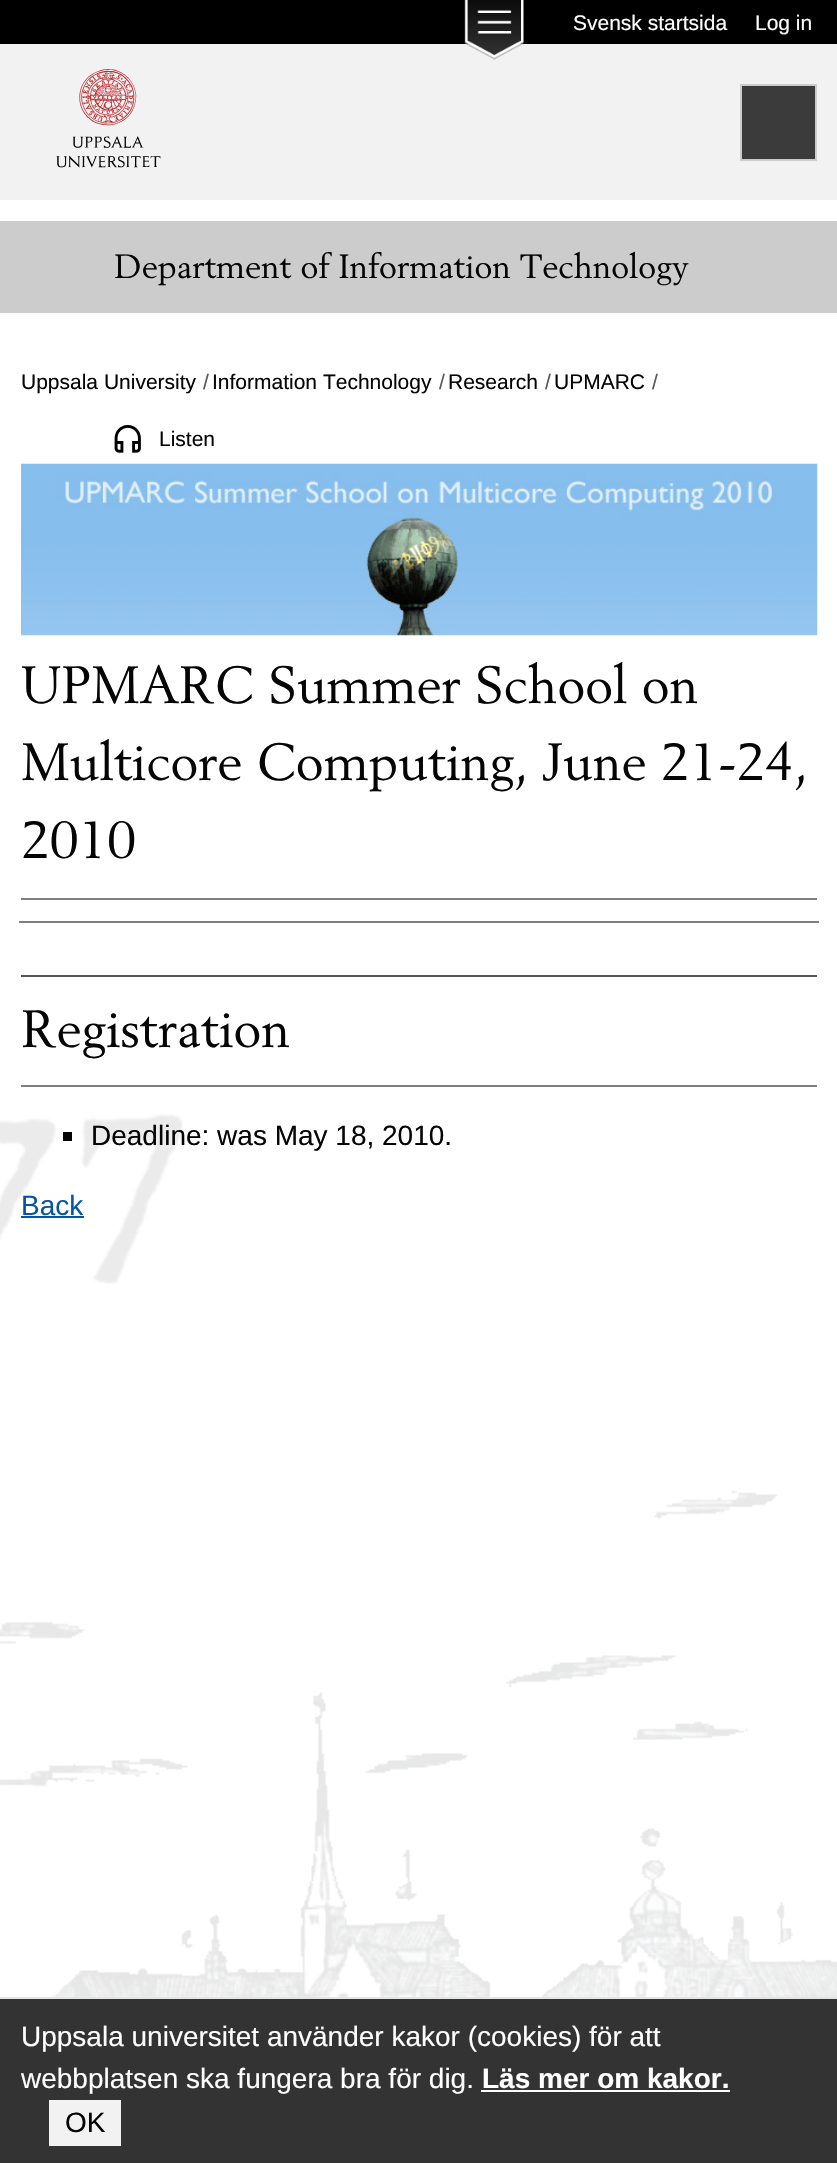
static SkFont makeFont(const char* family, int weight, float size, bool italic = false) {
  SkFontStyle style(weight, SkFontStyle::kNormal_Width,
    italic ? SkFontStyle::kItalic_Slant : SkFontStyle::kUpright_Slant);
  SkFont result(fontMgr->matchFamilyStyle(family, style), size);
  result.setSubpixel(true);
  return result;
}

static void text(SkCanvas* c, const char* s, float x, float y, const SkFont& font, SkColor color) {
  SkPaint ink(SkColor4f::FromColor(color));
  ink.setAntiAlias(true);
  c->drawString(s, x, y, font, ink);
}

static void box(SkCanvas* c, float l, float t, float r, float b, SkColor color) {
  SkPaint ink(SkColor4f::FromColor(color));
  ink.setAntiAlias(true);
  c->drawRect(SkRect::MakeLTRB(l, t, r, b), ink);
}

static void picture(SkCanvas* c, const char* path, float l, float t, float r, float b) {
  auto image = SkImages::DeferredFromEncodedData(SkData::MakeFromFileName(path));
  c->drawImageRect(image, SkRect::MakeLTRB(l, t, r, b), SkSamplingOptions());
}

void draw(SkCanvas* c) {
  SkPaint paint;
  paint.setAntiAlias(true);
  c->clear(0xffffffff);
  box(c, 0, 44, 837, 200, 0xfff2f2f2);
  box(c, 0, 0, 837, 44, 0xff000000);
  picture(c, "img_01.png", 464, 0, 524, 60);
  SkFont face1 = makeFont("Liberation Sans", 400, 21);
  text(c, "Svensk startsida", 573, 30, face1, 0xffffffff);
  text(c, "Log in", 755, 30, face1, 0xffffffff);
  picture(c, "img_02.png", 56, 69, 161, 168);
  picture(c, "img_03.png", 0, 1114, 183, 1284);
  paint.setColor(0xff3b3b3b);
  c->drawRect(SkRect::MakeLTRB(741, 85, 816, 160), paint);
  paint.setStyle(SkPaint::kStroke_Style);
  paint.setStrokeWidth(2);
  paint.setColor(0xffcccccc);
  c->drawRect(SkRect::MakeLTRB(741, 85, 816, 160), paint);
  box(c, 0, 221, 837, 313, 0xffcccccc);
  SkFont face2 = makeFont("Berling", 400, 33.25f);
  text(c, "Department of Information Technology", 114, 278, face2, 0xff050505);
  text(c, "Uppsala University", 21, 389, face1, 0xff050505);
  text(c, "/", 203, 389, face1, 0xff585858);
  text(c, "Information Technology", 212, 389, face1, 0xff050505);
  text(c, "/", 439, 389, face1, 0xff585858);
  text(c, "Research", 448, 389, face1, 0xff050505);
  text(c, "/", 545, 389, face1, 0xff585858);
  text(c, "UPMARC", 554, 389, face1, 0xff050505);
  text(c, "/", 652, 389, face1, 0xff585858);
  picture(c, "img_04.png", 114, 425, 141, 453);
  text(c, "Listen", 159, 446, face1, 0xff050505);
  picture(c, "img_05.png", 21, 463, 818, 636);
  box(c, 21, 898, 817, 900, 0xff7f7f7f);
  SkFont face3 = makeFont("Berling", 400, 51.75f);
  text(c, "UPMARC Summer School on", 21, 703, face3, 0xff050505);
  text(c, "Multicore Computing, June 21-24,", 21, 780, face3, 0xff050505);
  text(c, "2010", 21, 858, face3, 0xff050505);
  box(c, 19, 921, 819, 923, 0xff7f7f7f);
  box(c, 21, 975, 817, 977, 0xff555555);
  box(c, 21, 1085, 817, 1087, 0xff7f7f7f);
  text(c, "Registration", 21, 1047, face3, 0xff050505);
  box(c, 63, 1132, 72, 1141, 0xff050505);
  SkFont face4 = makeFont("Liberation Sans", 400, 28);
  text(c, "Deadline: was May 18, 2010.", 91, 1145, face4, 0xff050505);
  text(c, "Back", 21, 1215, face4, 0xff0555a4);
  box(c, 21, 1216, 84, 1218, 0xff0555a4);
  picture(c, "img_06.png", 0, 1490, 837, 1997);
  box(c, 0, 1999, 837, 2163, 0xff333333);
  box(c, 0, 1997, 837, 1999, 0xffe5e5e5);
  text(c, "Uppsala universitet använder kakor (cookies) för att", 21, 2046, face4, 0xffffffff);
  text(c, "webbplatsen ska fungera bra för dig.", 21, 2088, face4, 0xffffffff);
  SkFont face5 = makeFont("Liberation Sans", 700, 28);
  text(c, "Läs mer om kakor.", 482, 2088, face5, 0xffffffff);
  box(c, 481, 2090, 730, 2092, 0xffffffff);
  box(c, 49, 2100, 121, 2146, 0xfff2f2f2);
  text(c, "OK", 65, 2132, face4, 0xff050505);
}
